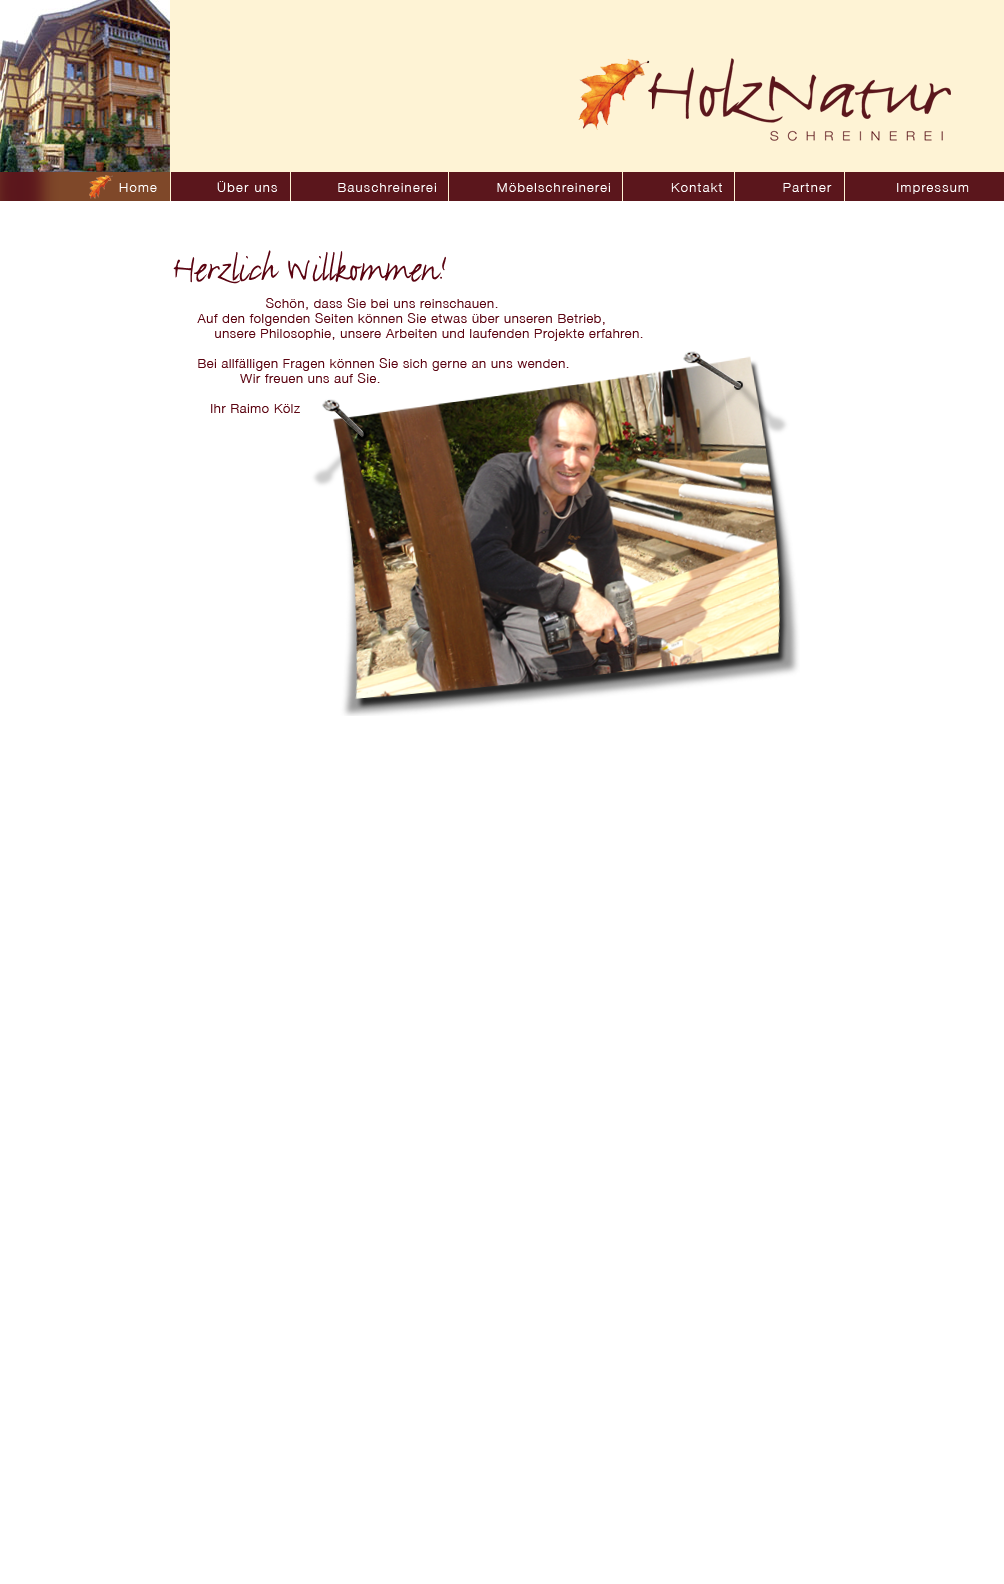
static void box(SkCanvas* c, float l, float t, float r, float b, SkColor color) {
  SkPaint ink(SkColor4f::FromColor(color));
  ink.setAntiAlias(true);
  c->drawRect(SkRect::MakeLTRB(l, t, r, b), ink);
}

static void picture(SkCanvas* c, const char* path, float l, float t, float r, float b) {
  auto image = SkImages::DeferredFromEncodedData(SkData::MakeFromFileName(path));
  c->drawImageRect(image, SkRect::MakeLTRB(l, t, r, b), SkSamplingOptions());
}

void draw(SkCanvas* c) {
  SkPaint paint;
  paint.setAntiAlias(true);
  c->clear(0xffffffff);
  box(c, 170, 0, 1004, 172, 0xfffef3d5);
  picture(c, "img_01.png", 0, 0, 170, 172);
  picture(c, "img_02.png", 578, 58, 951, 141);
  box(c, 277, 172, 1004, 201, 0xff5b161c);
  picture(c, "img_03.png", 0, 172, 170, 201);
  picture(c, "img_04.png", 170, 172, 277, 201);
  picture(c, "img_05.png", 290, 172, 436, 201);
  picture(c, "img_06.png", 448, 172, 610, 201);
  picture(c, "img_07.png", 622, 172, 722, 201);
  picture(c, "img_08.png", 734, 172, 832, 201);
  picture(c, "img_09.png", 844, 172, 969, 201);
  picture(c, "img_10.png", 173, 250, 446, 284);
  picture(c, "img_11.png", 197, 298, 643, 341);
  picture(c, "img_12.png", 198, 351, 800, 716);
}
